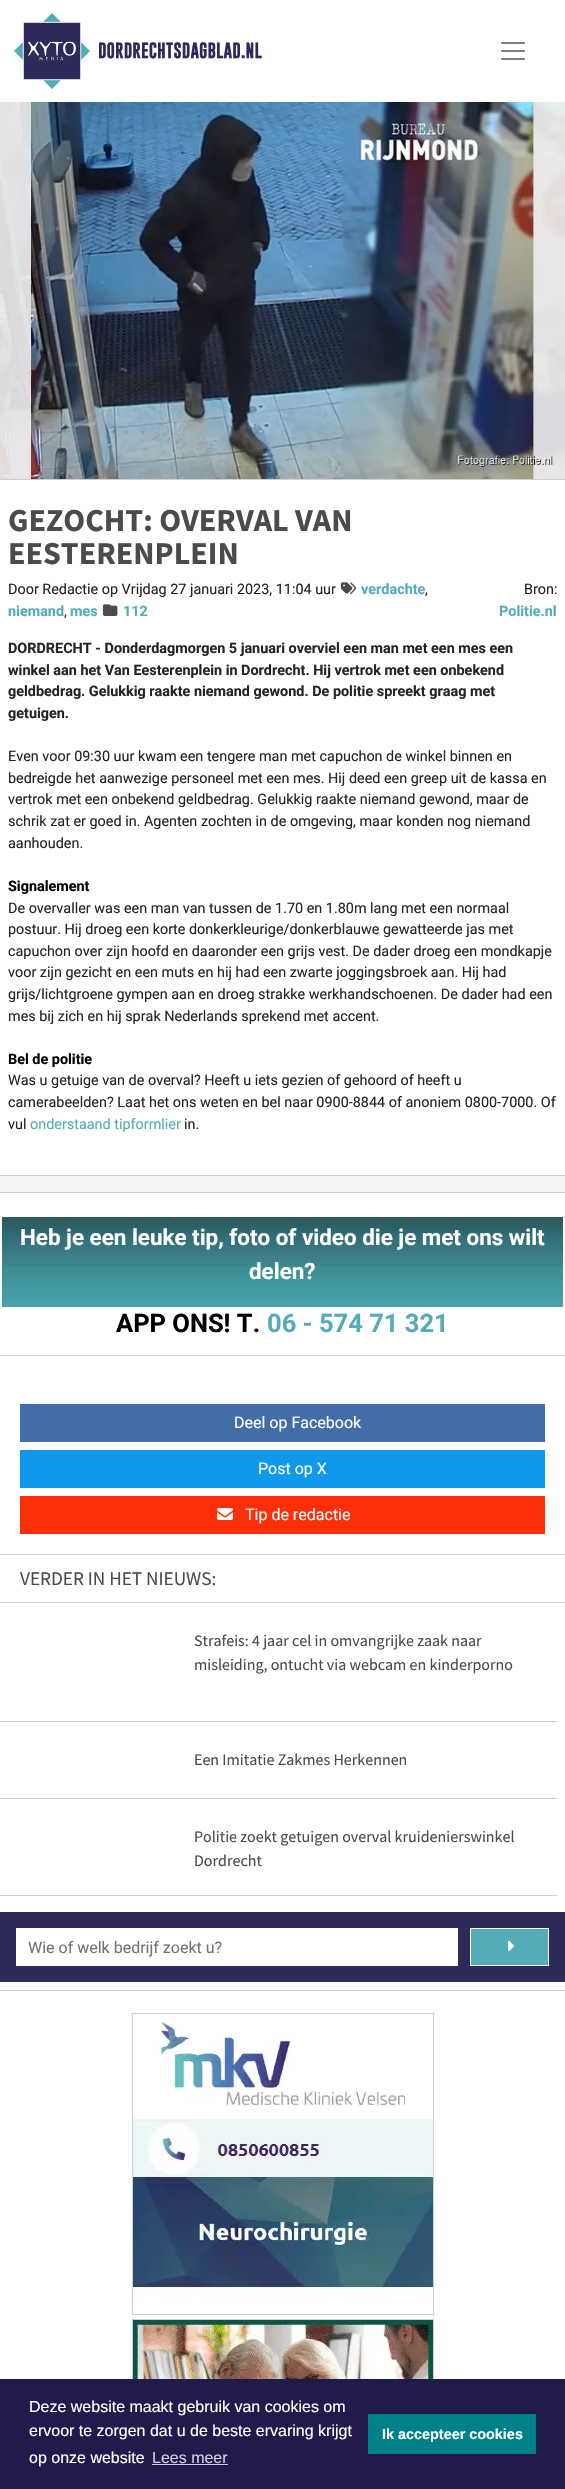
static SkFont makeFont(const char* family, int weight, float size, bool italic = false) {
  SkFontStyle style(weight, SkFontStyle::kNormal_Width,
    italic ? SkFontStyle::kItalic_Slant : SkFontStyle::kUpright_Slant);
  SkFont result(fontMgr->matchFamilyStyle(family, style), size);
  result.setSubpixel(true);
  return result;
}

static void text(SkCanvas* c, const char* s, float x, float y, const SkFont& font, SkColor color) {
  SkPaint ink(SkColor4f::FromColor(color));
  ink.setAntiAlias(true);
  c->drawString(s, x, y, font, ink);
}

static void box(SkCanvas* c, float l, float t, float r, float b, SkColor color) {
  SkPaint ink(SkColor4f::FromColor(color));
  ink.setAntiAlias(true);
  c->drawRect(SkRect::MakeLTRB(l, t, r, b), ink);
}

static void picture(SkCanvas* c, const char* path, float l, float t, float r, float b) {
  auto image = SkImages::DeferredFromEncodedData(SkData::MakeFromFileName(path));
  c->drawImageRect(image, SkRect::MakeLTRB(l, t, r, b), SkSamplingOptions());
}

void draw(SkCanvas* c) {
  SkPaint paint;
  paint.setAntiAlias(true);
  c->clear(0xffffffff);
  picture(c, "img_01.png", 14, 13, 91, 90);
  SkFont face1 = makeFont("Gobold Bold", 700, 16);
  text(c, "DORDRECHTSDAGBLAD.NL", 98, 58, face1, 0xff2d2a5b);
  picture(c, "img_02.png", 501, 42, 525, 60);
  box(c, 0, 479, 565, 480, 0xffcfcfcf);
  picture(c, "img_03.png", 0, 102, 565, 479);
  SkFont face2 = makeFont("Source Sans Pro", 700, 32);
  text(c, "GEZOCHT: OVERVAL VAN", 8, 531, face2, 0xff4c4b4b);
  text(c, "EESTERENPLEIN", 8, 564, face2, 0xff4c4b4b);
  SkFont face3 = makeFont("Roboto", 400, 14.4f);
  text(c, "Door Redactie op Vrijdag 27 januari 2023, 11:04 uur", 8, 594, face3, 0xff212529);
  picture(c, "img_04.png", 340, 582, 356, 595);
  SkFont face4 = makeFont("Roboto", 700, 14.4f);
  text(c, "verdachte", 361, 594, face4, 0xff53acb8);
  text(c, ",", 425, 594, face3, 0xff212529);
  text(c, "niemand", 8, 616, face4, 0xff53acb8);
  text(c, ",", 64, 616, face3, 0xff212529);
  text(c, "mes", 70, 616, face4, 0xff53acb8);
  picture(c, "img_05.png", 103, 604, 118, 616);
  text(c, "112", 123, 616, face4, 0xff53acb8);
  text(c, "Bron:", 524, 594, face3, 0xff212529);
  text(c, "Politie.nl", 499, 616, face4, 0xff53acb8);
  text(c, "DORDRECHT - Donderdagmorgen 5 januari overviel een man met een mes een", 8, 653, face4, 0xff212529);
  text(c, "winkel aan het Van Eesterenplein in Dordrecht. Hij vertrok met een onbekend", 8, 675, face4, 0xff212529);
  text(c, "geldbedrag. Gelukkig raakte niemand gewond. De politie spreekt graag met", 8, 696, face4, 0xff212529);
  text(c, "getuigen.", 8, 718, face4, 0xff212529);
  text(c, "Even voor 09:30 uur kwam een tengere man met capuchon de winkel binnen en", 8, 761, face3, 0xff212529);
  text(c, "bedreigde het aanwezige personeel met een mes. Hij deed een greep uit de kassa en", 8, 783, face3, 0xff212529);
  text(c, "vertrok met een onbekend geldbedrag. Gelukkig raakte niemand gewond, maar de", 8, 804, face3, 0xff212529);
  text(c, "schrik zat er goed in. Agenten zochten in de omgeving, maar konden nog niemand", 8, 826, face3, 0xff212529);
  text(c, "aanhouden.", 8, 848, face3, 0xff212529);
  text(c, "Signalement", 8, 891, face4, 0xff000000);
  text(c, "De overvaller was een man van tussen de 1.70 en 1.80m lang met een normaal", 8, 913, face3, 0xff212529);
  text(c, "postuur. Hij droeg een korte donkerkleurige/donkerblauwe gewatteerde jas met", 8, 934, face3, 0xff212529);
  text(c, "capuchon over zijn hoofd en daaronder een grijs vest. De dader droeg een mondkapje", 8, 956, face3, 0xff212529);
  text(c, "voor zijn gezicht en een muts en hij had een zwarte joggingsbroek aan. Hij had", 8, 977, face3, 0xff212529);
  text(c, "grijs/lichtgroene gympen aan en droeg strakke werkhandschoenen. De dader had een", 8, 999, face3, 0xff212529);
  text(c, "mes bij zich en hij sprak Nederlands sprekend met accent.", 8, 1021, face3, 0xff212529);
  text(c, "Bel de politie", 8, 1064, face4, 0xff000000);
  text(c, "Was u getuige van de overval? Heeft u iets gezien of gehoord of heeft u", 8, 1085, face3, 0xff212529);
  text(c, "camerabeelden? Laat het ons weten en bel naar 0900-8844 of anoniem 0800-7000. Of", 8, 1107, face3, 0xff212529);
  text(c, "vul", 8, 1129, face3, 0xff212529);
  text(c, "onderstaand tipformlier", 30, 1129, face3, 0xff53acb8);
  text(c, "in.", 184, 1129, face3, 0xff212529);
  box(c, 0, 1176, 565, 1192, 0xfff4f4f2);
  box(c, 0, 1175, 565, 1176, 0xffcfcfcf);
  box(c, 0, 1192, 565, 1193, 0xffcfcfcf);
  picture(c, "img_06.png", 2, 1217, 563, 1307);
  SkFont face5 = makeFont("Roboto", 700, 22.4f);
  text(c, "Heb je een leuke tip, foto of video die je met ons wilt", 20, 1245, face5, 0xffffffff);
  text(c, "delen?", 249, 1279, face5, 0xffffffff);
  SkFont face6 = makeFont("Roboto", 700, 25.5f);
  text(c, "APP ONS! T.", 116, 1332, face6, 0xff000000);
  text(c, "06 - 574 71 321", 267, 1332, face6, 0xff53acb8);
  box(c, 0, 1355, 565, 1356, 0xffcfcfcf);
  box(c, 20, 1404, 545, 1442, 0xff436da9);
  SkFont face7 = makeFont("Roboto", 400, 16);
  text(c, "Deel op Facebook", 234, 1428, face7, 0xffffffff);
  box(c, 20, 1450, 545, 1488, 0xff0e99ec);
  text(c, "Post op X", 258, 1474, face7, 0xffffffff);
  box(c, 20, 1496, 545, 1534, 0xfffd2f08);
  picture(c, "img_07.png", 217, 1508, 233, 1520);
  text(c, "Tip de redactie", 245, 1520, face7, 0xffffffff);
  box(c, 0, 1554, 565, 1555, 0xffcfcfcf);
  box(c, 0, 1602, 565, 1603, 0xffcfcfcf);
  SkFont face8 = makeFont("Source Sans Pro", 400, 19.25f);
  text(c, "VERDER IN HET NIEUWS:", 20, 1585, face8, 0xff4c4b4b);
  box(c, 0, 1721, 557, 1722, 0xffcfcfcf);
  SkFont face9 = makeFont("Source Sans Pro", 400, 16);
  text(c, "Strafeis: 4 jaar cel in omvangrijke zaak naar", 194, 1646, face9, 0xff4c4b4b);
  text(c, "misleiding, ontucht via webcam en kinderporno", 194, 1670, face9, 0xff4c4b4b);
  box(c, 0, 1798, 557, 1799, 0xffcfcfcf);
  text(c, "Een Imitatie Zakmes Herkennen", 194, 1765, face9, 0xff4c4b4b);
  box(c, 0, 1895, 557, 1896, 0xffcfcfcf);
  text(c, "Politie zoekt getuigen overval kruidenierswinkel", 194, 1842, face9, 0xff4c4b4b);
  text(c, "Dordrecht", 194, 1866, face9, 0xff4c4b4b);
  box(c, 0, 1912, 565, 1982, 0xff2d2a5b);
  box(c, 16, 1928, 458, 1966, 0xffffffff);
  text(c, "Wie of welk bedrijf zoekt u?", 28, 1953, face7, 0xff6c757d);
  paint.setColor(0xff53acb8);
  c->drawRect(SkRect::MakeLTRB(470.5f, 1928.5f, 548.5f, 1965.5f), paint);
  paint.setStyle(SkPaint::kStroke_Style);
  paint.setStrokeWidth(1);
  paint.setColor(0xffffffff);
  c->drawRect(SkRect::MakeLTRB(470.5f, 1928.5f, 548.5f, 1965.5f), paint);
  picture(c, "img_08.png", 508, 1941, 514, 1951);
  box(c, 0, 1990, 565, 1991, 0xffcfcfcf);
  paint.setColor(0xffcfcfcf);
  c->drawRect(SkRect::MakeLTRB(132.5f, 2013.5f, 433.5f, 2314.5f), paint);
  picture(c, "img_09.png", 133, 2021, 433, 2298);
  c->drawRect(SkRect::MakeLTRB(132.5f, 2319.5f, 433.5f, 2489.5f), paint);
  picture(c, "img_10.png", 133, 2320, 433, 2379);
  box(c, 0, 2379, 565, 2489, 0xff201b4a);
  SkFont face10 = makeFont("Liberation Sans", 400, 16);
  text(c, "Deze website maakt gebruik van cookies om", 29, 2412, face10, 0xffffffff);
  text(c, "ervoor te zorgen dat u de beste ervaring krijgt", 29, 2436, face10, 0xffffffff);
  text(c, "op onze website", 29, 2463, face10, 0xffffffff);
  text(c, "Lees meer", 152, 2463, face10, 0xffd2d1db);
  box(c, 152, 2464, 228, 2465, 0xffd2d1db);
  box(c, 368, 2414, 536, 2454, 0xff00818a);
  SkFont face11 = makeFont("Liberation Sans", 700, 14.4f);
  text(c, "Ik accepteer cookies", 382, 2439, face11, 0xffffffff);
}
